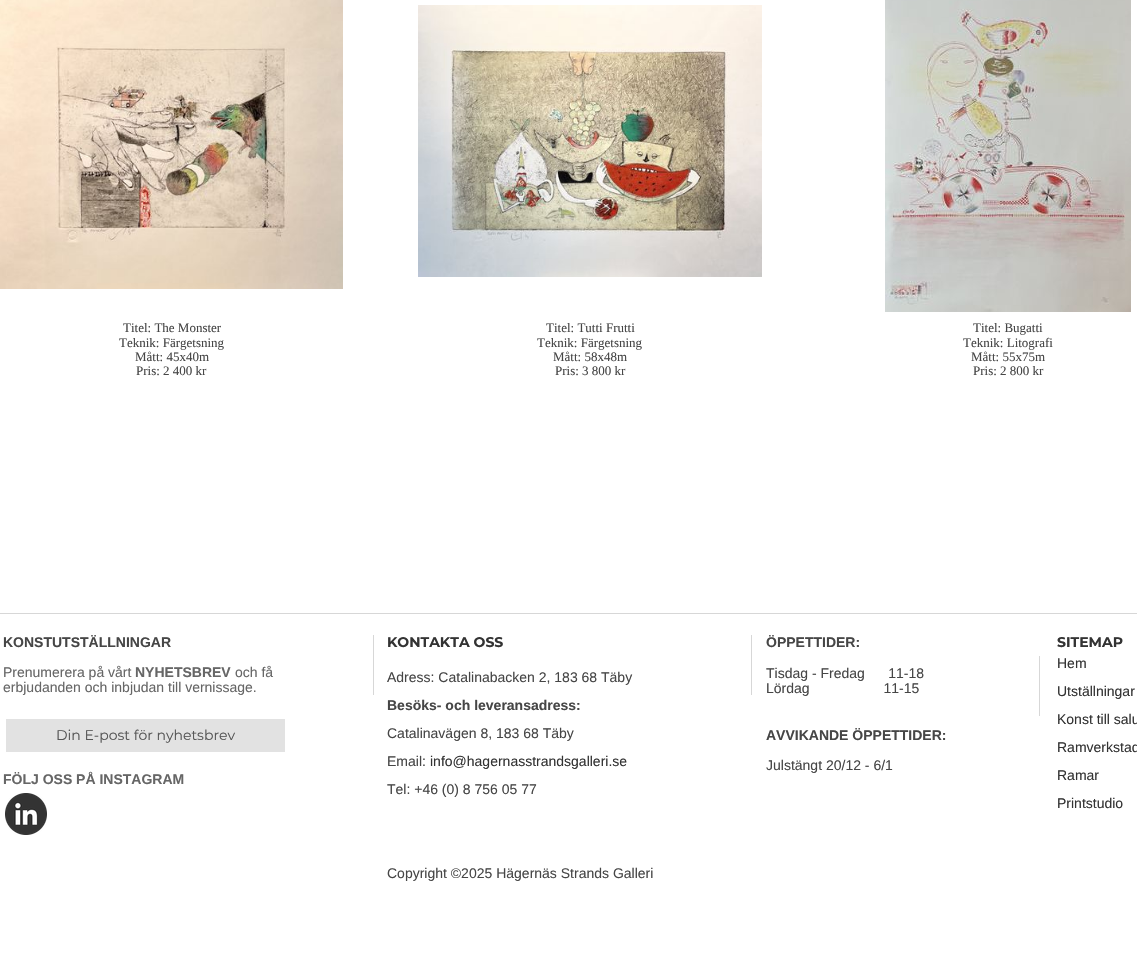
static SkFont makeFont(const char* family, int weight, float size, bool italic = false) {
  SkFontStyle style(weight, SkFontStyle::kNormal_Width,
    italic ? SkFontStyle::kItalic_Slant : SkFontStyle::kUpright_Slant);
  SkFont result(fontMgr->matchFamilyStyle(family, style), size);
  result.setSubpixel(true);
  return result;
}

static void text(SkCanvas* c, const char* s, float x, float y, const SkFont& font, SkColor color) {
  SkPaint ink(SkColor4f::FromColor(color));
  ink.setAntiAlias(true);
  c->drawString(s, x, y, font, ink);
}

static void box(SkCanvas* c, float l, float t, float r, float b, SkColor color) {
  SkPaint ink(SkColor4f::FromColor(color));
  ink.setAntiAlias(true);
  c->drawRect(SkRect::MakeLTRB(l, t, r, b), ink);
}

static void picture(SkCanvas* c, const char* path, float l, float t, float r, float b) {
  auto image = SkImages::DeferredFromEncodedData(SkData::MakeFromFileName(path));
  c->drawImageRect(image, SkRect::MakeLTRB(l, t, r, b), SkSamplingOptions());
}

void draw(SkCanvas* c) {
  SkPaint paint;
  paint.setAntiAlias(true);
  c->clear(0xffffffff);
  picture(c, "img_01.png", 0, 0, 343, 289);
  SkFont face1 = makeFont("Liberation Serif", 400, 13);
  text(c, "Titel: The Monster", 123, 332, face1, 0xff464646);
  text(c, "Teknik: Färgetsning", 119, 347, face1, 0xff464646);
  text(c, "Mått: 45x40m", 135, 361, face1, 0xff464646);
  text(c, "Pris: 2 400 kr", 136, 375, face1, 0xff464646);
  picture(c, "img_02.png", 418, 5, 762, 277);
  text(c, "Titel: Tutti Frutti", 546, 332, face1, 0xff464646);
  text(c, "Teknik: Färgetsning", 537, 347, face1, 0xff464646);
  text(c, "Mått: 58x48m", 553, 361, face1, 0xff464646);
  text(c, "Pris: 3 800 kr", 555, 375, face1, 0xff464646);
  picture(c, "img_03.png", 885, 0, 1131, 312);
  text(c, "Titel: Bugatti", 973, 332, face1, 0xff464646);
  text(c, "Teknik: Litografi", 963, 347, face1, 0xff464646);
  text(c, "Mått: 55x75m", 971, 361, face1, 0xff464646);
  text(c, "Pris: 2 800 kr", 973, 375, face1, 0xff464646);
  SkFont face2 = makeFont("Liberation Sans", 700, 14);
  text(c, "KONSTUTSTÄLLNINGAR", 3, 647, face2, 0xff464646);
  SkFont face3 = makeFont("Liberation Sans", 400, 14);
  text(c, "Prenumerera på vårt", 3, 677, face3, 0xff666666);
  text(c, "NYHETSBREV", 135, 677, face2, 0xff666666);
  text(c, "och få", 235, 677, face3, 0xff666666);
  text(c, "erbjudanden och inbjudan till vernissage.", 3, 692, face3, 0xff666666);
  text(c, "FÖLJ OSS PÅ INSTAGRAM", 3, 784, face2, 0xff666666);
  box(c, 6, 719, 285, 752, 0xffe2e2e2);
  SkFont face4 = makeFont("Montserrat", 400, 14);
  text(c, "Din E-post för nyhetsbrev", 56, 740, face4, 0xff555555);
  picture(c, "img_04.png", 5, 793, 47, 835);
  box(c, 373, 635, 374, 695, 0xffd7d7d7);
  box(c, 0, 613, 1137, 614, 0xffd7d7d7);
  SkFont face5 = makeFont("Montserrat", 700, 14);
  text(c, "KONTAKTA OSS", 387, 647, face5, 0xff333333);
  text(c, "Adress: Catalinabacken 2, 183 68 Täby", 387, 682, face3, 0xff464646);
  text(c, "Besöks- och leveransadress:", 387, 710, face2, 0xff464646);
  text(c, "Catalinavägen 8, 183 68 Täby", 387, 738, face3, 0xff464646);
  text(c, "Email:", 387, 766, face3, 0xff464646);
  text(c, "info@hagernasstrandsgalleri.se", 430, 766, face3, 0xff333333);
  text(c, "Tel: +46 (0) 8 756 05 77", 387, 794, face3, 0xff464646);
  text(c, "Copyright ©2025 Hägernäs Strands Galleri", 387, 878, face3, 0xff464646);
  box(c, 751, 635, 752, 695, 0xffd7d7d7);
  text(c, "ÖPPETTIDER:", 766, 647, face2, 0xff464646);
  text(c, "Tisdag - Fredag      11-18", 766, 678, face3, 0xff464646);
  text(c, "Lördag                   11-15", 766, 693, face3, 0xff464646);
  text(c, "AVVIKANDE ÖPPETTIDER:", 766, 740, face2, 0xff464646);
  text(c, "Julstängt 20/12 - 6/1", 766, 770, face3, 0xff464646);
  box(c, 1039, 656, 1040, 716, 0xffd7d7d7);
  text(c, "SITEMAP", 1057, 647, face5, 0xff333333);
  text(c, "Hem", 1057, 668, face3, 0xff333333);
  text(c, "Utställningar", 1057, 696, face3, 0xff333333);
  text(c, "Konst till salu", 1057, 724, face3, 0xff333333);
  text(c, "Ramverkstad", 1057, 752, face3, 0xff333333);
  text(c, "Ramar", 1057, 780, face3, 0xff333333);
  text(c, "Printstudio", 1057, 808, face3, 0xff333333);
}
